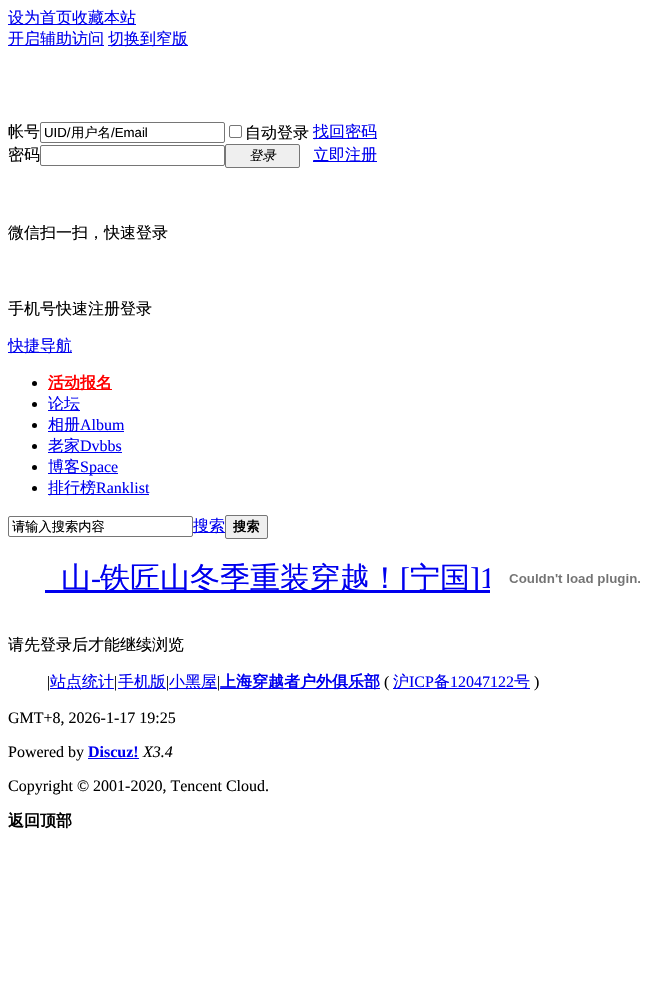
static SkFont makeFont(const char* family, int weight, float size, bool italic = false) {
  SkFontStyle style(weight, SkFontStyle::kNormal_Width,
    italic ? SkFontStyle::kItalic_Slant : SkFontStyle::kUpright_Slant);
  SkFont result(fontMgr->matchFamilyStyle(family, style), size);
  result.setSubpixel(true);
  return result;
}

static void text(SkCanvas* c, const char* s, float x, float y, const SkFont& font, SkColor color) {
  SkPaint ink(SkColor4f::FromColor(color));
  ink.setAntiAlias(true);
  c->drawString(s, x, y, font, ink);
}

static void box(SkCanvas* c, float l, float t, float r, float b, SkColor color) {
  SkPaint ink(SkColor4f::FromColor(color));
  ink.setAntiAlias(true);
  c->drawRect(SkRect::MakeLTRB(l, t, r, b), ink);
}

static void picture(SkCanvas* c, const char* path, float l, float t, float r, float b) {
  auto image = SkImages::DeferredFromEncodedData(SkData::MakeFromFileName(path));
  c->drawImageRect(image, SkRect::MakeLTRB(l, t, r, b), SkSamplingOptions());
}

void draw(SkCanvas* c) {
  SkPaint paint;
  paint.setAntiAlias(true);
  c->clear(0xffffffff);
  box(c, 8, 24, 136, 25, 0xff0000ee);
  SkFont face1 = makeFont("WenQuanYi Zen Hei", 500, 16);
  text(c, "设为首页收藏本站", 8, 23, face1, 0xff0000ee);
  box(c, 8, 45, 104, 46, 0xff0000ee);
  text(c, "开启辅助访问", 8, 44, face1, 0xff0000ee);
  box(c, 108, 45, 188, 46, 0xff0000ee);
  text(c, "切换到窄版", 108, 44, face1, 0xff0000ee);
  text(c, "帐号", 8, 137, face1, 0xff000000);
  paint.setStyle(SkPaint::kStroke_Style);
  paint.setStrokeWidth(1);
  paint.setColor(0xff767676);
  c->drawRoundRect(SkRect::MakeLTRB(40.5f, 122.5f, 224.5f, 142.5f), 1.5f, 1.5f, paint);
  SkFont face2 = makeFont("Liberation Sans", 400, 13.25f);
  text(c, "UID/", 44, 137, face2, 0xff000000);
  SkFont face3 = makeFont("WenQuanYi Zen Hei", 500, 13.25f);
  text(c, "用户名", 71, 137, face3, 0xff000000);
  text(c, "/Email", 111, 137, face2, 0xff000000);
  c->drawRoundRect(SkRect::MakeLTRB(229.5f, 125.5f, 241.5f, 137.5f), 1.5f, 1.5f, paint);
  text(c, "自动登录", 245, 138, face1, 0xff000000);
  box(c, 313, 138, 377, 139, 0xff0000ee);
  text(c, "找回密码", 313, 137, face1, 0xff0000ee);
  text(c, "密码", 8, 160, face1, 0xff000000);
  c->drawRoundRect(SkRect::MakeLTRB(40.5f, 145.5f, 224.5f, 165.5f), 1.5f, 1.5f, paint);
  paint.setStyle(SkPaint::kFill_Style);
  paint.setColor(0xffefefef);
  c->drawRoundRect(SkRect::MakeLTRB(225.5f, 144.5f, 299.5f, 167.5f), 1.5f, 1.5f, paint);
  paint.setStyle(SkPaint::kStroke_Style);
  paint.setColor(0xff767676);
  c->drawRoundRect(SkRect::MakeLTRB(225.5f, 144.5f, 299.5f, 167.5f), 1.5f, 1.5f, paint);
  SkFont face4 = makeFont("WenQuanYi Zen Hei", 500, 13.25f, true);
  text(c, "登录", 249, 160, face4, 0xff000000);
  box(c, 313, 161, 377, 162, 0xff0000ee);
  text(c, "立即注册", 313, 160, face1, 0xff0000ee);
  text(c, "微信扫一扫，快速登录", 8, 238, face1, 0xff000000);
  text(c, "手机号快速注册登录", 8, 314, face1, 0xff000000);
  box(c, 8, 352, 72, 353, 0xff0000ee);
  text(c, "快捷导航", 8, 351, face1, 0xff0000ee);
  paint.setStyle(SkPaint::kFill_Style);
  paint.setColor(0xff000000);
  c->drawCircle(34.5f, 383.5f, 2.5f, paint);
  box(c, 48, 389, 112, 390, 0xffff0000);
  SkFont face5 = makeFont("WenQuanYi Zen Hei", 700, 16);
  text(c, "活动报名", 48, 388, face5, 0xffff0000);
  c->drawCircle(34.5f, 404.5f, 2.5f, paint);
  box(c, 48, 410, 80, 411, 0xff0000ee);
  text(c, "论坛", 48, 409, face1, 0xff0000ee);
  c->drawCircle(34.5f, 425.5f, 2.5f, paint);
  box(c, 48, 431, 124, 432, 0xff0000ee);
  text(c, "相册", 48, 430, face1, 0xff0000ee);
  SkFont face6 = makeFont("Liberation Serif", 400, 16);
  text(c, "Album", 80, 430, face6, 0xff0000ee);
  c->drawCircle(34.5f, 446.5f, 2.5f, paint);
  box(c, 48, 452, 122, 453, 0xff0000ee);
  text(c, "老家", 48, 451, face1, 0xff0000ee);
  text(c, "Dvbbs", 80, 451, face6, 0xff0000ee);
  c->drawCircle(34.5f, 467.5f, 2.5f, paint);
  box(c, 48, 473, 118, 474, 0xff0000ee);
  text(c, "博客", 48, 472, face1, 0xff0000ee);
  text(c, "Space", 80, 472, face6, 0xff0000ee);
  c->drawCircle(34.5f, 488.5f, 2.5f, paint);
  box(c, 48, 494, 149, 495, 0xff0000ee);
  text(c, "排行榜", 48, 493, face1, 0xff0000ee);
  text(c, "Ranklist", 96, 493, face6, 0xff0000ee);
  paint.setStyle(SkPaint::kStroke_Style);
  paint.setColor(0xff767676);
  c->drawRoundRect(SkRect::MakeLTRB(8.5f, 516.5f, 192.5f, 536.5f), 1.5f, 1.5f, paint);
  text(c, "请输入搜索内容", 12, 531, face3, 0xff000000);
  box(c, 193, 532, 225, 533, 0xff0000ee);
  text(c, "搜索", 193, 531, face1, 0xff0000ee);
  paint.setStyle(SkPaint::kFill_Style);
  paint.setColor(0xffefefef);
  c->drawRoundRect(SkRect::MakeLTRB(225.5f, 515.5f, 267.5f, 538.5f), 1.5f, 1.5f, paint);
  paint.setStyle(SkPaint::kStroke_Style);
  paint.setColor(0xff767676);
  c->drawRoundRect(SkRect::MakeLTRB(225.5f, 515.5f, 267.5f, 538.5f), 1.5f, 1.5f, paint);
  SkFont face7 = makeFont("WenQuanYi Zen Hei", 700, 13.25f);
  text(c, "搜索", 233, 531, face7, 0xff000000);
  box(c, 45, 590, 490, 593, 0xff0000ee);
  SkFont face8 = makeFont("WenQuanYi Zen Hei", 500, 30);
  text(c, "山", 61, 588, face8, 0xff0000ee);
  SkFont face9 = makeFont("Liberation Serif", 400, 30);
  text(c, "-", 91, 588, face9, 0xff0000ee);
  text(c, "铁匠山冬季重装穿越！", 100, 588, face8, 0xff0000ee);
  text(c, "[", 400, 588, face9, 0xff0000ee);
  text(c, "宁国", 410, 588, face8, 0xff0000ee);
  text(c, "]", 470, 588, face9, 0xff0000ee);
  c->save();
  c->clipRect(SkRect::MakeLTRB(45, 558, 490, 599));
  text(c, "1", 480, 588, face9, 0xff0000ee);
  c->restore();
  picture(c, "img_01.png", 509, 574, 640, 586);
  text(c, "请先登录后才能继续浏览", 8, 650, face1, 0xff000000);
  text(c, "|", 47, 687, face6, 0xff000000);
  box(c, 50, 688, 114, 689, 0xff0000ee);
  text(c, "站点统计", 50, 687, face1, 0xff0000ee);
  text(c, "|", 114, 687, face6, 0xff000000);
  box(c, 118, 688, 166, 689, 0xff0000ee);
  text(c, "手机版", 118, 687, face1, 0xff0000ee);
  text(c, "|", 166, 687, face6, 0xff000000);
  box(c, 169, 688, 217, 689, 0xff0000ee);
  text(c, "小黑屋", 169, 687, face1, 0xff0000ee);
  text(c, "|", 217, 687, face6, 0xff000000);
  box(c, 220, 688, 380, 689, 0xff0000ee);
  text(c, "上海穿越者户外俱乐部", 220, 687, face5, 0xff0000ee);
  text(c, "(", 384, 687, face6, 0xff000000);
  box(c, 393, 688, 530, 689, 0xff0000ee);
  text(c, "沪", 393, 687, face1, 0xff0000ee);
  text(c, "ICP", 409, 687, face6, 0xff0000ee);
  text(c, "备", 434, 687, face1, 0xff0000ee);
  text(c, "12047122", 450, 687, face6, 0xff0000ee);
  text(c, "号", 514, 687, face1, 0xff0000ee);
  text(c, ")", 534, 687, face6, 0xff000000);
  text(c, "GMT+8, 2026-1-17 19:25", 8, 723, face6, 0xff000000);
  text(c, "Powered by", 8, 757, face6, 0xff000000);
  SkFont face10 = makeFont("Liberation Serif", 700, 16);
  text(c, "Discuz!", 88, 757, face10, 0xff0000ee);
  box(c, 88, 758, 139, 759, 0xff0000ee);
  SkFont face11 = makeFont("Liberation Serif", 400, 16, true);
  text(c, "X3.4", 143, 757, face11, 0xff000000);
  text(c, "Copyright © 2001-2020, Tencent Cloud.", 8, 791, face6, 0xff000000);
  text(c, "返回顶部", 8, 826, face5, 0xff000000);
}
